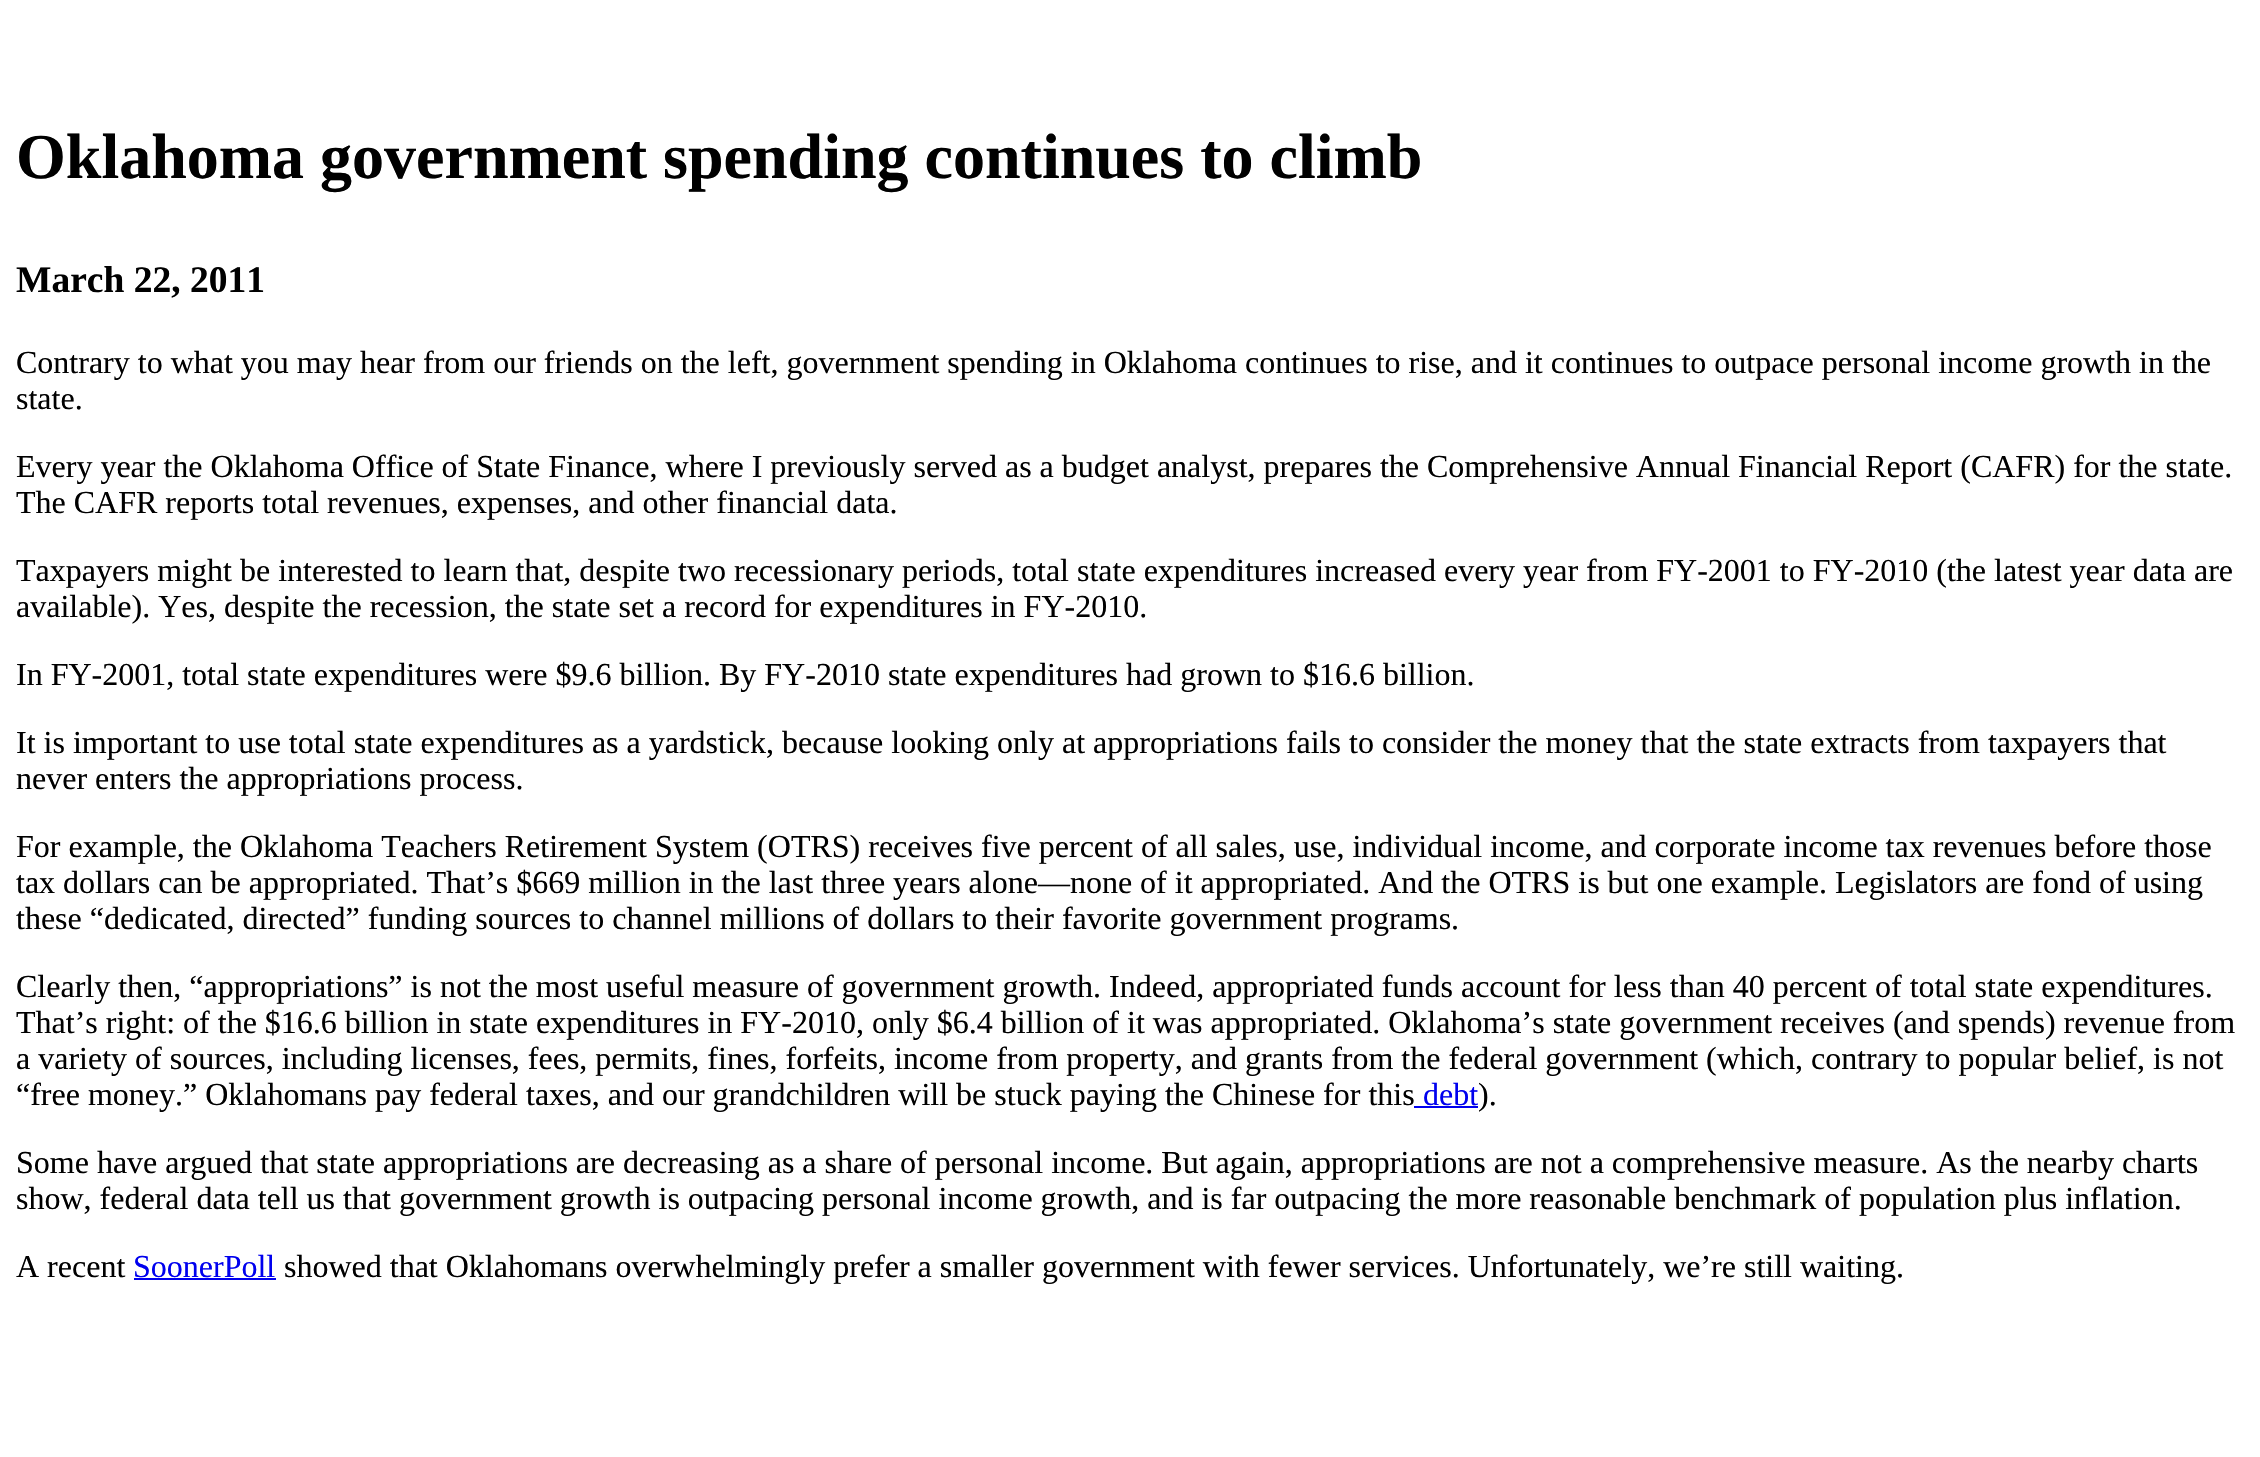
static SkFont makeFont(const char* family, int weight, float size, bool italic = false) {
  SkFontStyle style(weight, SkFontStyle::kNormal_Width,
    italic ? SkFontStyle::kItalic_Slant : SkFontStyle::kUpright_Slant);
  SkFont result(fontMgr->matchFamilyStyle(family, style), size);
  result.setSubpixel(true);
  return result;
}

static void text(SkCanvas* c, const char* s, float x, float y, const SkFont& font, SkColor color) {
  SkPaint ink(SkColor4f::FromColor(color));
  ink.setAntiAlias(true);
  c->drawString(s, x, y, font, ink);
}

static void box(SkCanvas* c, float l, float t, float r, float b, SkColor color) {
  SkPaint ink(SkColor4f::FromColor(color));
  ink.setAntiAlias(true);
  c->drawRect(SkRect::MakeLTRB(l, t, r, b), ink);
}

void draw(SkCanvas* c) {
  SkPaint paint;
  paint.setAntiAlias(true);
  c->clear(0xffffffff);
  SkFont face1 = makeFont("Liberation Serif", 700, 64);
  text(c, "Oklahoma government spending continues to climb", 16, 178, face1, 0xff000000);
  SkFont face2 = makeFont("Liberation Serif", 700, 37.5f);
  text(c, "March 22, 2011", 16, 292, face2, 0xff000000);
  SkFont face3 = makeFont("Liberation Serif", 400, 32);
  text(c, "Contrary to what you may hear from our friends on the left, government spending in Oklahoma continues to rise, and it continues to outpace personal income growth in the", 16, 373, face3, 0xff000000);
  text(c, "state.", 16, 409, face3, 0xff000000);
  text(c, "Every year the Oklahoma Office of State Finance, where I previously served as a budget analyst, prepares the Comprehensive Annual Financial Report (CAFR) for the state.", 16, 477, face3, 0xff000000);
  text(c, "The CAFR reports total revenues, expenses, and other financial data.", 16, 513, face3, 0xff000000);
  text(c, "Taxpayers might be interested to learn that, despite two recessionary periods, total state expenditures increased every year from FY-2001 to FY-2010 (the latest year data are", 16, 581, face3, 0xff000000);
  text(c, "available). Yes, despite the recession, the state set a record for expenditures in FY-2010.", 16, 617, face3, 0xff000000);
  text(c, "In FY-2001, total state expenditures were $9.6 billion. By FY-2010 state expenditures had grown to $16.6 billion.", 16, 685, face3, 0xff000000);
  text(c, "It is important to use total state expenditures as a yardstick, because looking only at appropriations fails to consider the money that the state extracts from taxpayers that", 16, 753, face3, 0xff000000);
  text(c, "never enters the appropriations process.", 16, 789, face3, 0xff000000);
  text(c, "For example, the Oklahoma Teachers Retirement System (OTRS) receives five percent of all sales, use, individual income, and corporate income tax revenues before those", 16, 857, face3, 0xff000000);
  text(c, "tax dollars can be appropriated. That’s $669 million in the last three years alone—none of it appropriated. And the OTRS is but one example. Legislators are fond of using", 16, 893, face3, 0xff000000);
  text(c, "these “dedicated, directed” funding sources to channel millions of dollars to their favorite government programs.", 16, 929, face3, 0xff000000);
  text(c, "Clearly then, “appropriations” is not the most useful measure of government growth. Indeed, appropriated funds account for less than 40 percent of total state expenditures.", 16, 997, face3, 0xff000000);
  text(c, "That’s right: of the $16.6 billion in state expenditures in FY-2010, only $6.4 billion of it was appropriated. Oklahoma’s state government receives (and spends) revenue from", 16, 1033, face3, 0xff000000);
  text(c, "a variety of sources, including licenses, fees, permits, fines, forfeits, income from property, and grants from the federal government (which, contrary to popular belief, is not", 16, 1069, face3, 0xff000000);
  text(c, "“free money.” Oklahomans pay federal taxes, and our grandchildren will be stuck paying the Chinese for this", 16, 1105, face3, 0xff000000);
  text(c, "debt", 1423, 1105, face3, 0xff0000ee);
  box(c, 1414, 1106, 1478, 1108, 0xff0000ee);
  text(c, ").", 1478, 1105, face3, 0xff000000);
  text(c, "Some have argued that state appropriations are decreasing as a share of personal income. But again, appropriations are not a comprehensive measure. As the nearby charts", 16, 1173, face3, 0xff000000);
  text(c, "show, federal data tell us that government growth is outpacing personal income growth, and is far outpacing the more reasonable benchmark of population plus inflation.", 16, 1209, face3, 0xff000000);
  text(c, "A recent", 16, 1277, face3, 0xff000000);
  text(c, "SoonerPoll", 133, 1277, face3, 0xff0000ee);
  box(c, 134, 1278, 276, 1280, 0xff0000ee);
  text(c, "showed that Oklahomans overwhelmingly prefer a smaller government with fewer services. Unfortunately, we’re still waiting.", 284, 1277, face3, 0xff000000);
}
